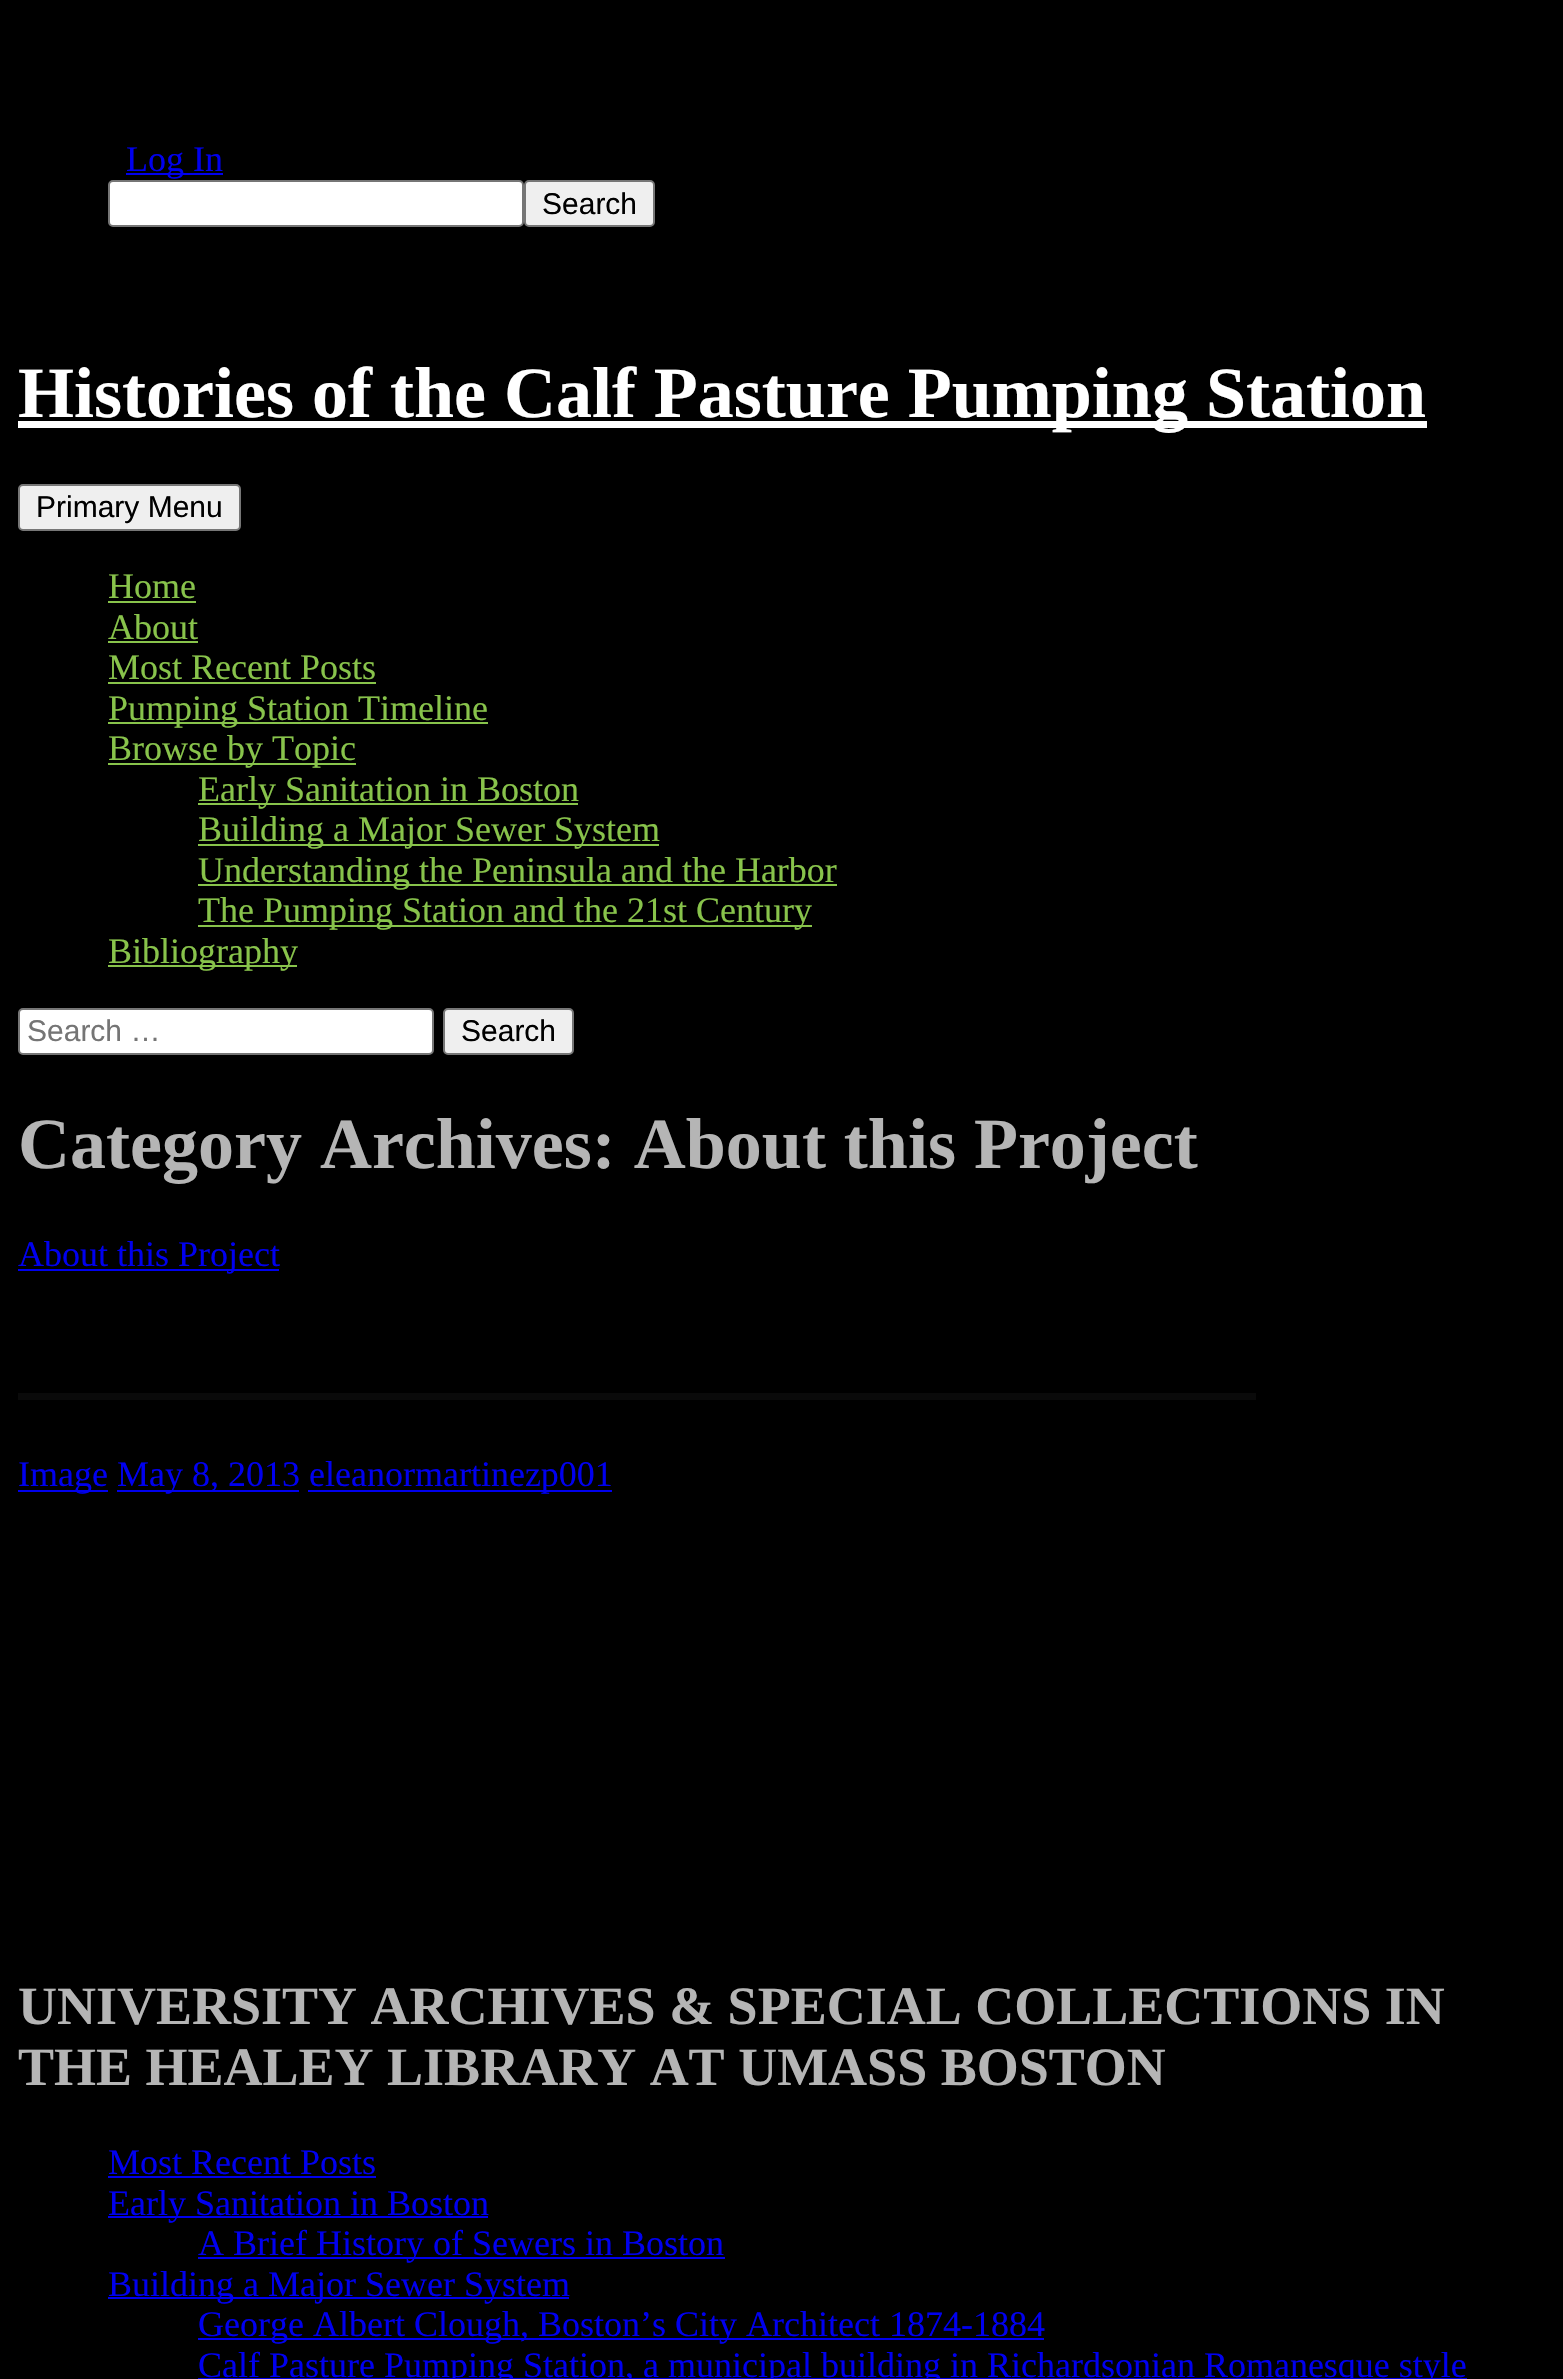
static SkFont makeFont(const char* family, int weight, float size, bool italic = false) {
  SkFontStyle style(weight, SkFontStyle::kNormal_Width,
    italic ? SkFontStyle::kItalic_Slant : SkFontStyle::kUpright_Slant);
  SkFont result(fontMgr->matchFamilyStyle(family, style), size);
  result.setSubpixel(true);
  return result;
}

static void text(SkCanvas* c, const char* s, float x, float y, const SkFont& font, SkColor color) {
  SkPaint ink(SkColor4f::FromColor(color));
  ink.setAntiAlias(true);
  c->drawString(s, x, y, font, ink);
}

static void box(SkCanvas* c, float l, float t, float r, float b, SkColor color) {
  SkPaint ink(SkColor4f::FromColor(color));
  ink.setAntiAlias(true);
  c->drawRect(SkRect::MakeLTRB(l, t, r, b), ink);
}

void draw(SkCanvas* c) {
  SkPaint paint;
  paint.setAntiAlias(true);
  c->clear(0xff000000);
  box(c, 126, 173, 223, 175, 0xff0000ee);
  SkFont face1 = makeFont("Liberation Serif", 400, 36);
  text(c, "Log In", 126, 171, face1, 0xff0000ee);
  paint.setColor(0xffffffff);
  c->drawRoundRect(SkRect::MakeLTRB(109, 181, 523, 226), 4, 4, paint);
  paint.setStyle(SkPaint::kStroke_Style);
  paint.setStrokeWidth(2);
  paint.setColor(0xff767676);
  c->drawRoundRect(SkRect::MakeLTRB(109, 181, 523, 226), 4, 4, paint);
  paint.setStyle(SkPaint::kFill_Style);
  paint.setColor(0xffefefef);
  c->drawRoundRect(SkRect::MakeLTRB(525, 181, 654, 226), 4, 4, paint);
  paint.setStyle(SkPaint::kStroke_Style);
  paint.setColor(0xff767676);
  c->drawRoundRect(SkRect::MakeLTRB(525, 181, 654, 226), 4, 4, paint);
  SkFont face2 = makeFont("Liberation Sans", 400, 30);
  text(c, "Search", 542, 214, face2, 0xff000000);
  box(c, 18, 421, 1427, 428, 0xffffffff);
  SkFont face3 = makeFont("Liberation Serif", 700, 72);
  text(c, "Histories of the Calf Pasture Pumping Station", 18, 417, face3, 0xffffffff);
  paint.setStyle(SkPaint::kFill_Style);
  paint.setColor(0xffefefef);
  c->drawRoundRect(SkRect::MakeLTRB(19, 485, 240, 530), 4, 4, paint);
  paint.setStyle(SkPaint::kStroke_Style);
  paint.setColor(0xff767676);
  c->drawRoundRect(SkRect::MakeLTRB(19, 485, 240, 530), 4, 4, paint);
  text(c, "Primary Menu", 36, 517, face2, 0xff000000);
  text(c, "Home", 108, 598, face1, 0xff88c34b);
  box(c, 108, 601, 196, 603, 0xff88c34b);
  text(c, "About", 108, 639, face1, 0xff88c34b);
  box(c, 108, 641, 198, 643, 0xff88c34b);
  text(c, "Most Recent Posts", 108, 679, face1, 0xff88c34b);
  box(c, 108, 682, 376, 684, 0xff88c34b);
  box(c, 108, 722, 488, 724, 0xff88c34b);
  text(c, "Pumping Station Timeline", 108, 720, face1, 0xff88c34b);
  box(c, 108, 763, 356, 765, 0xff88c34b);
  text(c, "Browse by Topic", 108, 760, face1, 0xff88c34b);
  box(c, 198, 803, 578, 805, 0xff88c34b);
  text(c, "Early Sanitation in Boston", 198, 801, face1, 0xff88c34b);
  box(c, 198, 844, 659, 846, 0xff88c34b);
  text(c, "Building a Major Sewer System", 198, 841, face1, 0xff88c34b);
  box(c, 198, 884, 837, 886, 0xff88c34b);
  text(c, "Understanding the Peninsula and the Harbor", 198, 882, face1, 0xff88c34b);
  box(c, 198, 925, 812, 927, 0xff88c34b);
  text(c, "The Pumping Station and the 21st Century", 198, 922, face1, 0xff88c34b);
  box(c, 108, 965, 297, 967, 0xff88c34b);
  text(c, "Bibliography", 108, 963, face1, 0xff88c34b);
  paint.setStyle(SkPaint::kFill_Style);
  paint.setColor(0xffffffff);
  c->drawRoundRect(SkRect::MakeLTRB(19, 1009, 433, 1054), 4, 4, paint);
  paint.setStyle(SkPaint::kStroke_Style);
  paint.setColor(0xff767676);
  c->drawRoundRect(SkRect::MakeLTRB(19, 1009, 433, 1054), 4, 4, paint);
  text(c, "Search …", 27, 1041, face2, 0xff757575);
  paint.setStyle(SkPaint::kFill_Style);
  paint.setColor(0xffefefef);
  c->drawRoundRect(SkRect::MakeLTRB(444, 1009, 573, 1054), 4, 4, paint);
  paint.setStyle(SkPaint::kStroke_Style);
  paint.setColor(0xff767676);
  c->drawRoundRect(SkRect::MakeLTRB(444, 1009, 573, 1054), 4, 4, paint);
  text(c, "Search", 461, 1041, face2, 0xff000000);
  text(c, "Category Archives: About this Project", 18, 1168, face3, 0xffb5b5b5);
  box(c, 18, 1269, 279, 1271, 0xff0000ee);
  text(c, "About this Project", 18, 1266, face1, 0xff0000ee);
  box(c, 18, 1393, 1256, 1400, 0xff0a0a0a);
  box(c, 18, 1490, 108, 1492, 0xff0000ee);
  text(c, "Image", 18, 1486, face1, 0xff0000ee);
  box(c, 117, 1490, 299, 1492, 0xff0000ee);
  text(c, "May 8, 2013", 117, 1486, face1, 0xff0000ee);
  box(c, 308, 1490, 612, 1492, 0xff0000ee);
  text(c, "eleanormartinezp001", 309, 1486, face1, 0xff0000ee);
  SkFont face4 = makeFont("Liberation Serif", 700, 54);
  text(c, "UNIVERSITY ARCHIVES & SPECIAL COLLECTIONS IN", 18, 2024, face4, 0xffb5b5b5);
  text(c, "THE HEALEY LIBRARY AT UMASS BOSTON", 18, 2085, face4, 0xffb5b5b5);
  text(c, "Most Recent Posts", 108, 2174, face1, 0xff0000ee);
  box(c, 108, 2176, 376, 2178, 0xff0000ee);
  box(c, 108, 2216, 488, 2218, 0xff0000ee);
  text(c, "Early Sanitation in Boston", 108, 2215, face1, 0xff0000ee);
  box(c, 198, 2257, 725, 2259, 0xff0000ee);
  text(c, "A Brief History of Sewers in Boston", 198, 2255, face1, 0xff0000ee);
  box(c, 108, 2297, 569, 2299, 0xff0000ee);
  text(c, "Building a Major Sewer System", 108, 2296, face1, 0xff0000ee);
  box(c, 198, 2338, 1044, 2340, 0xff0000ee);
  text(c, "George Albert Clough, Boston’s City Architect 1874-1884", 198, 2336, face1, 0xff0000ee);
  box(c, 198, 2378, 1467, 2379, 0xff0000ee);
  text(c, "Calf Pasture Pumping Station, a municipal building in Richardsonian Romanesque style", 198, 2377, face1, 0xff0000ee);
}
